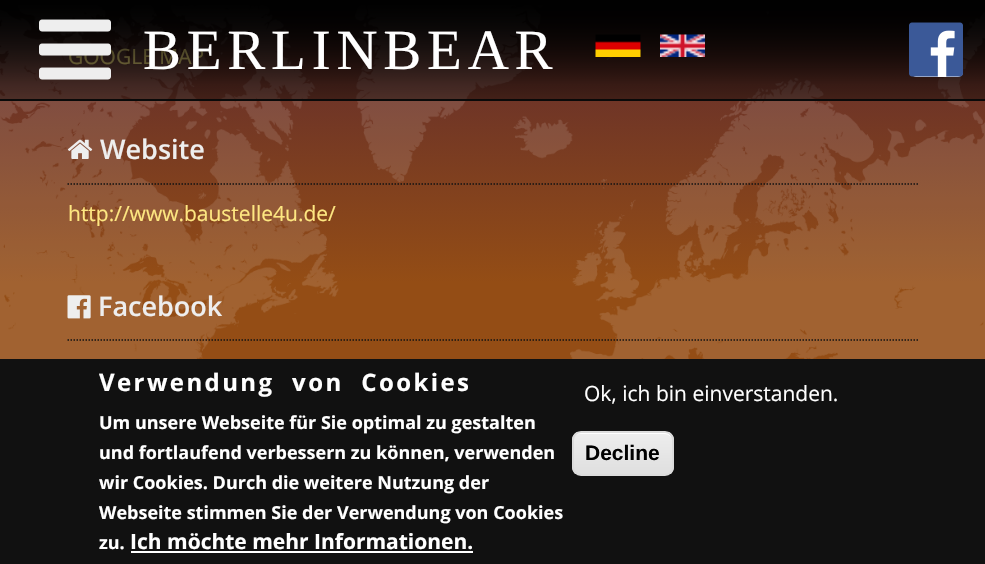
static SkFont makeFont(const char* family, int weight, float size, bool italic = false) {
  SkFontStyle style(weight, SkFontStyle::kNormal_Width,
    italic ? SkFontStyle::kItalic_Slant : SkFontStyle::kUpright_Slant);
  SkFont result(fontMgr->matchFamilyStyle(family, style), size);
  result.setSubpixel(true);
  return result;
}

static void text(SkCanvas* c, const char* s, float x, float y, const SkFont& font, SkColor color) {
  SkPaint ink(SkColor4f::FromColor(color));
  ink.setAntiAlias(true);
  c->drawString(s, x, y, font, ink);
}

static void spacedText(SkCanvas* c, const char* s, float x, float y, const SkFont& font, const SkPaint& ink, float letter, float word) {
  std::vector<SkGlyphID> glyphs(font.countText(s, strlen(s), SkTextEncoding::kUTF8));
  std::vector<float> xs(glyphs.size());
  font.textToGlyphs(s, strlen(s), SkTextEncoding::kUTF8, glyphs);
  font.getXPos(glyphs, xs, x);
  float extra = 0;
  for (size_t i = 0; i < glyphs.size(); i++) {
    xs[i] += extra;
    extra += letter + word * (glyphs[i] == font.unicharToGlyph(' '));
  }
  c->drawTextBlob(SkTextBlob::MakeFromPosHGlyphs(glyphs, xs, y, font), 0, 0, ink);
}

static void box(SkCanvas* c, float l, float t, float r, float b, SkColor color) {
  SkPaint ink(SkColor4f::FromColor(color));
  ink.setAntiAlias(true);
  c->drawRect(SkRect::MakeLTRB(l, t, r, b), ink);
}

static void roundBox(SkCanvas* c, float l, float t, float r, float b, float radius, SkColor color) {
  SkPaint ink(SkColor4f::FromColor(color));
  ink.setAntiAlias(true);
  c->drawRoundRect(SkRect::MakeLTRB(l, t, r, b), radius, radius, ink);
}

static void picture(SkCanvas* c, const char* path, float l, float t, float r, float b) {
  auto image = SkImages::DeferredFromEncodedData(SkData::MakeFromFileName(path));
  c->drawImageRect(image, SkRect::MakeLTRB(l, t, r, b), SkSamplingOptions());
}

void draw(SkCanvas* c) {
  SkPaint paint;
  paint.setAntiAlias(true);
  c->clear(0xffffffff);
  picture(c, "img_01.png", 0, 1, 985, 359);
  SkFont face1 = makeFont("Open Sans", 400, 21);
  text(c, "GOOGLE MAP", 68, 64, face1, 0xfffee781);
  {
    const SkColor colors[] = {0xff000000, 0x66000000};
    const float stops[] = {0, 1};
    const SkPoint ends[] = {{493, 0}, {493, 99}};
    paint.setShader(SkGradientShader::MakeLinear(ends, colors, stops, 2, SkTileMode::kClamp));
    paint.setAlpha(255);
  }
  c->drawRect(SkRect::MakeLTRB(0, 0, 985, 99), paint);
  box(c, 0, 99, 985, 101, 0xff090909);
  picture(c, "img_02.png", 39, 19, 111, 80);
  SkFont face2 = makeFont("Liberation Serif", 400, 57);
  paint.setShader(nullptr);
  paint.setColor(0xffffffff);
  spacedText(c, "BERLINBEAR", 143, 69, face2, paint, 5.75f, 0);
  picture(c, "img_03.png", 595, 34, 641, 57);
  picture(c, "img_04.png", 660, 34, 705, 57);
  roundBox(c, 911, 23, 963, 77, 5, 0xffffffff);
  picture(c, "img_05.png", 909, 22, 963, 77);
  paint.setStyle(SkPaint::kStroke_Style);
  paint.setStrokeWidth(1.5f);
  paint.setColor(0xff111111);
  paint.setPathEffect(SkDashPathEffect::Make({{1.5f, 1.5f}}, 0));
  c->drawPath(SkPathBuilder().moveTo(67.5f, 184).lineTo(918, 184).detach(), paint);
  paint.setPathEffect(nullptr);
  picture(c, "img_06.png", 67, 139, 93, 159);
  SkFont face3 = makeFont("Open Sans", 600, 27);
  text(c, "Website", 100, 159, face3, 0xffeeeeee);
  text(c, "http://www.baustelle4u.de/", 68, 221, face1, 0xfffee781);
  paint.setPathEffect(SkDashPathEffect::Make({{1.5f, 1.5f}}, 0));
  c->drawPath(SkPathBuilder().moveTo(67.5f, 340).lineTo(918, 340).detach(), paint);
  paint.setPathEffect(nullptr);
  picture(c, "img_07.png", 67, 295, 91, 319);
  text(c, "Facebook", 98, 316, face3, 0xffeeeeee);
  box(c, 0, 359, 985, 564, 0xff111111);
  SkFont face4 = makeFont("Open Sans", 700, 24);
  paint.setStyle(SkPaint::kFill_Style);
  paint.setColor(0xffffffff);
  spacedText(c, "Verwendung von Cookies", 99, 391, face4, paint, 2.4f, 9);
  SkFont face5 = makeFont("Open Sans", 700, 18);
  text(c, "Um unsere Webseite für Sie optimal zu gestalten", 99, 429, face5, 0xffffffff);
  text(c, "und fortlaufend verbessern zu können, verwenden", 99, 459, face5, 0xffffffff);
  text(c, "wir Cookies. Durch die weitere Nutzung der", 99, 489, face5, 0xffffffff);
  text(c, "Webseite stimmen Sie der Verwendung von Cookies", 99, 519, face5, 0xffffffff);
  text(c, "zu.", 99, 549, face5, 0xffffffff);
  SkFont face6 = makeFont("Open Sans", 700, 21);
  text(c, "Ich möchte mehr Informationen.", 130, 549, face6, 0xffffffff);
  box(c, 131, 551, 473, 553, 0xffffffff);
  text(c, "Ok, ich bin einverstanden.", 584, 401, face1, 0xffffffff);
  c->save();
  c->clipPath(SkPathBuilder().moveTo(581, 431).lineTo(665, 431).cubicTo(670, 431, 674, 435, 674, 440).lineTo(674, 467).cubicTo(674, 472, 670, 476, 665, 476).lineTo(581, 476).cubicTo(576, 476, 572, 472, 572, 467).lineTo(572, 440).cubicTo(572, 435, 576, 431, 581, 431).close().detach(), true);
  {
    const SkColor colors[] = {0xffededed, 0xffdfdfdf};
    const float stops[] = {0.05f, 1};
    const SkPoint ends[] = {{623, 432}, {623, 474}};
    paint.setShader(SkGradientShader::MakeLinear(ends, colors, stops, 2, SkTileMode::kClamp));
    paint.setAlpha(255);
  }
  c->drawRect(SkRect::MakeLTRB(572, 432, 674, 474), paint);
  c->restore();
  paint.setShader(nullptr);
  paint.setColor(0xffffffff);
  c->drawPath(SkPathBuilder().moveTo(580, 434).lineTo(664, 434).cubicTo(669, 434, 672, 437, 672, 441).cubicTo(672, 429, 658, 432, 650, 432).lineTo(595, 432).cubicTo(587, 432, 573, 429, 573, 441).cubicTo(573, 437, 576, 434, 580, 434).close().detach(), paint);
  paint.setStyle(SkPaint::kStroke_Style);
  paint.setStrokeWidth(2);
  paint.setColor(0xffdcdcdc);
  c->drawRoundRect(SkRect::MakeLTRB(573, 432, 673, 475), 8, 8, paint);
  SkFont face7 = makeFont("Liberation Sans", 700, 21);
  text(c, "Decline", 585, 460, face7, 0xff000000);
}
